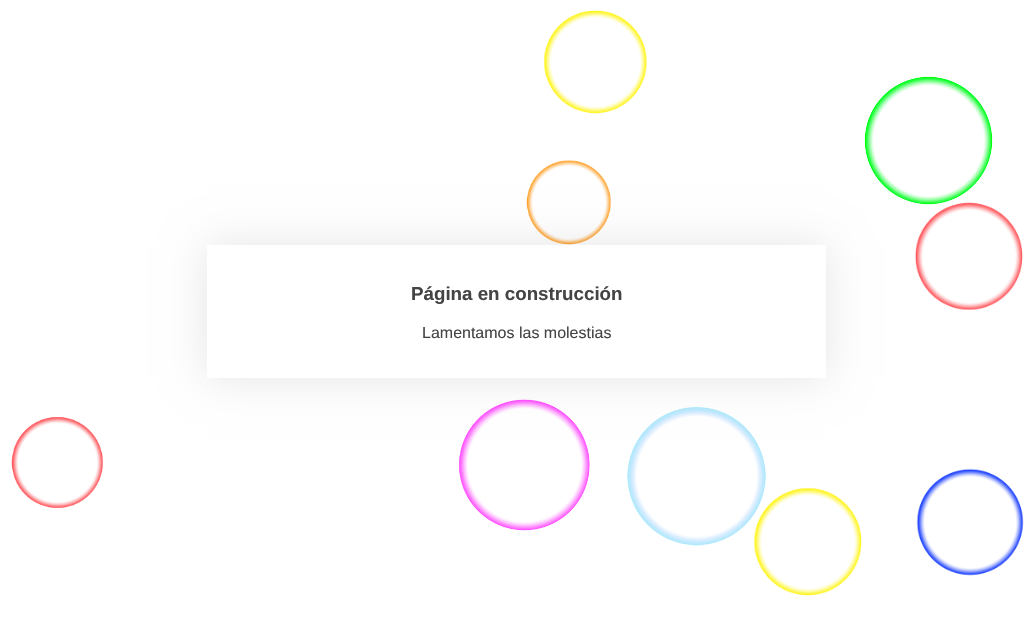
static SkFont makeFont(const char* family, int weight, float size, bool italic = false) {
  SkFontStyle style(weight, SkFontStyle::kNormal_Width,
    italic ? SkFontStyle::kItalic_Slant : SkFontStyle::kUpright_Slant);
  SkFont result(fontMgr->matchFamilyStyle(family, style), size);
  result.setSubpixel(true);
  return result;
}

static void text(SkCanvas* c, const char* s, float x, float y, const SkFont& font, SkColor color) {
  SkPaint ink(SkColor4f::FromColor(color));
  ink.setAntiAlias(true);
  c->drawString(s, x, y, font, ink);
}

static void picture(SkCanvas* c, const char* path, float l, float t, float r, float b) {
  auto image = SkImages::DeferredFromEncodedData(SkData::MakeFromFileName(path));
  c->drawImageRect(image, SkRect::MakeLTRB(l, t, r, b), SkSamplingOptions());
}

void draw(SkCanvas* c) {
  SkPaint paint;
  paint.setAntiAlias(true);
  c->clear(0xffffffff);
  picture(c, "img_01.png", 11, 10, 1024, 596);
  c->save();
  c->clipPath(SkPathBuilder(SkPathFillType::kEvenOdd).moveTo(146, 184).lineTo(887, 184).lineTo(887, 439).lineTo(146, 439).close().moveTo(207, 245).lineTo(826, 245).lineTo(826, 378).lineTo(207, 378).close().detach(), true);
  paint.setColor(0x1a000000);
  paint.setMaskFilter(SkMaskFilter::MakeBlur(kNormal_SkBlurStyle, 20));
  c->drawRect(SkRect::MakeLTRB(207, 245, 826, 378), paint);
  paint.setMaskFilter(nullptr);
  c->restore();
  SkFont face1 = makeFont("Liberation Sans", 700, 18.75f);
  text(c, "Página en construcción", 411, 300, face1, 0xff444444);
  SkFont face2 = makeFont("Liberation Sans", 400, 16);
  text(c, "Lamentamos las molestias", 422, 338, face2, 0xff444444);
}
